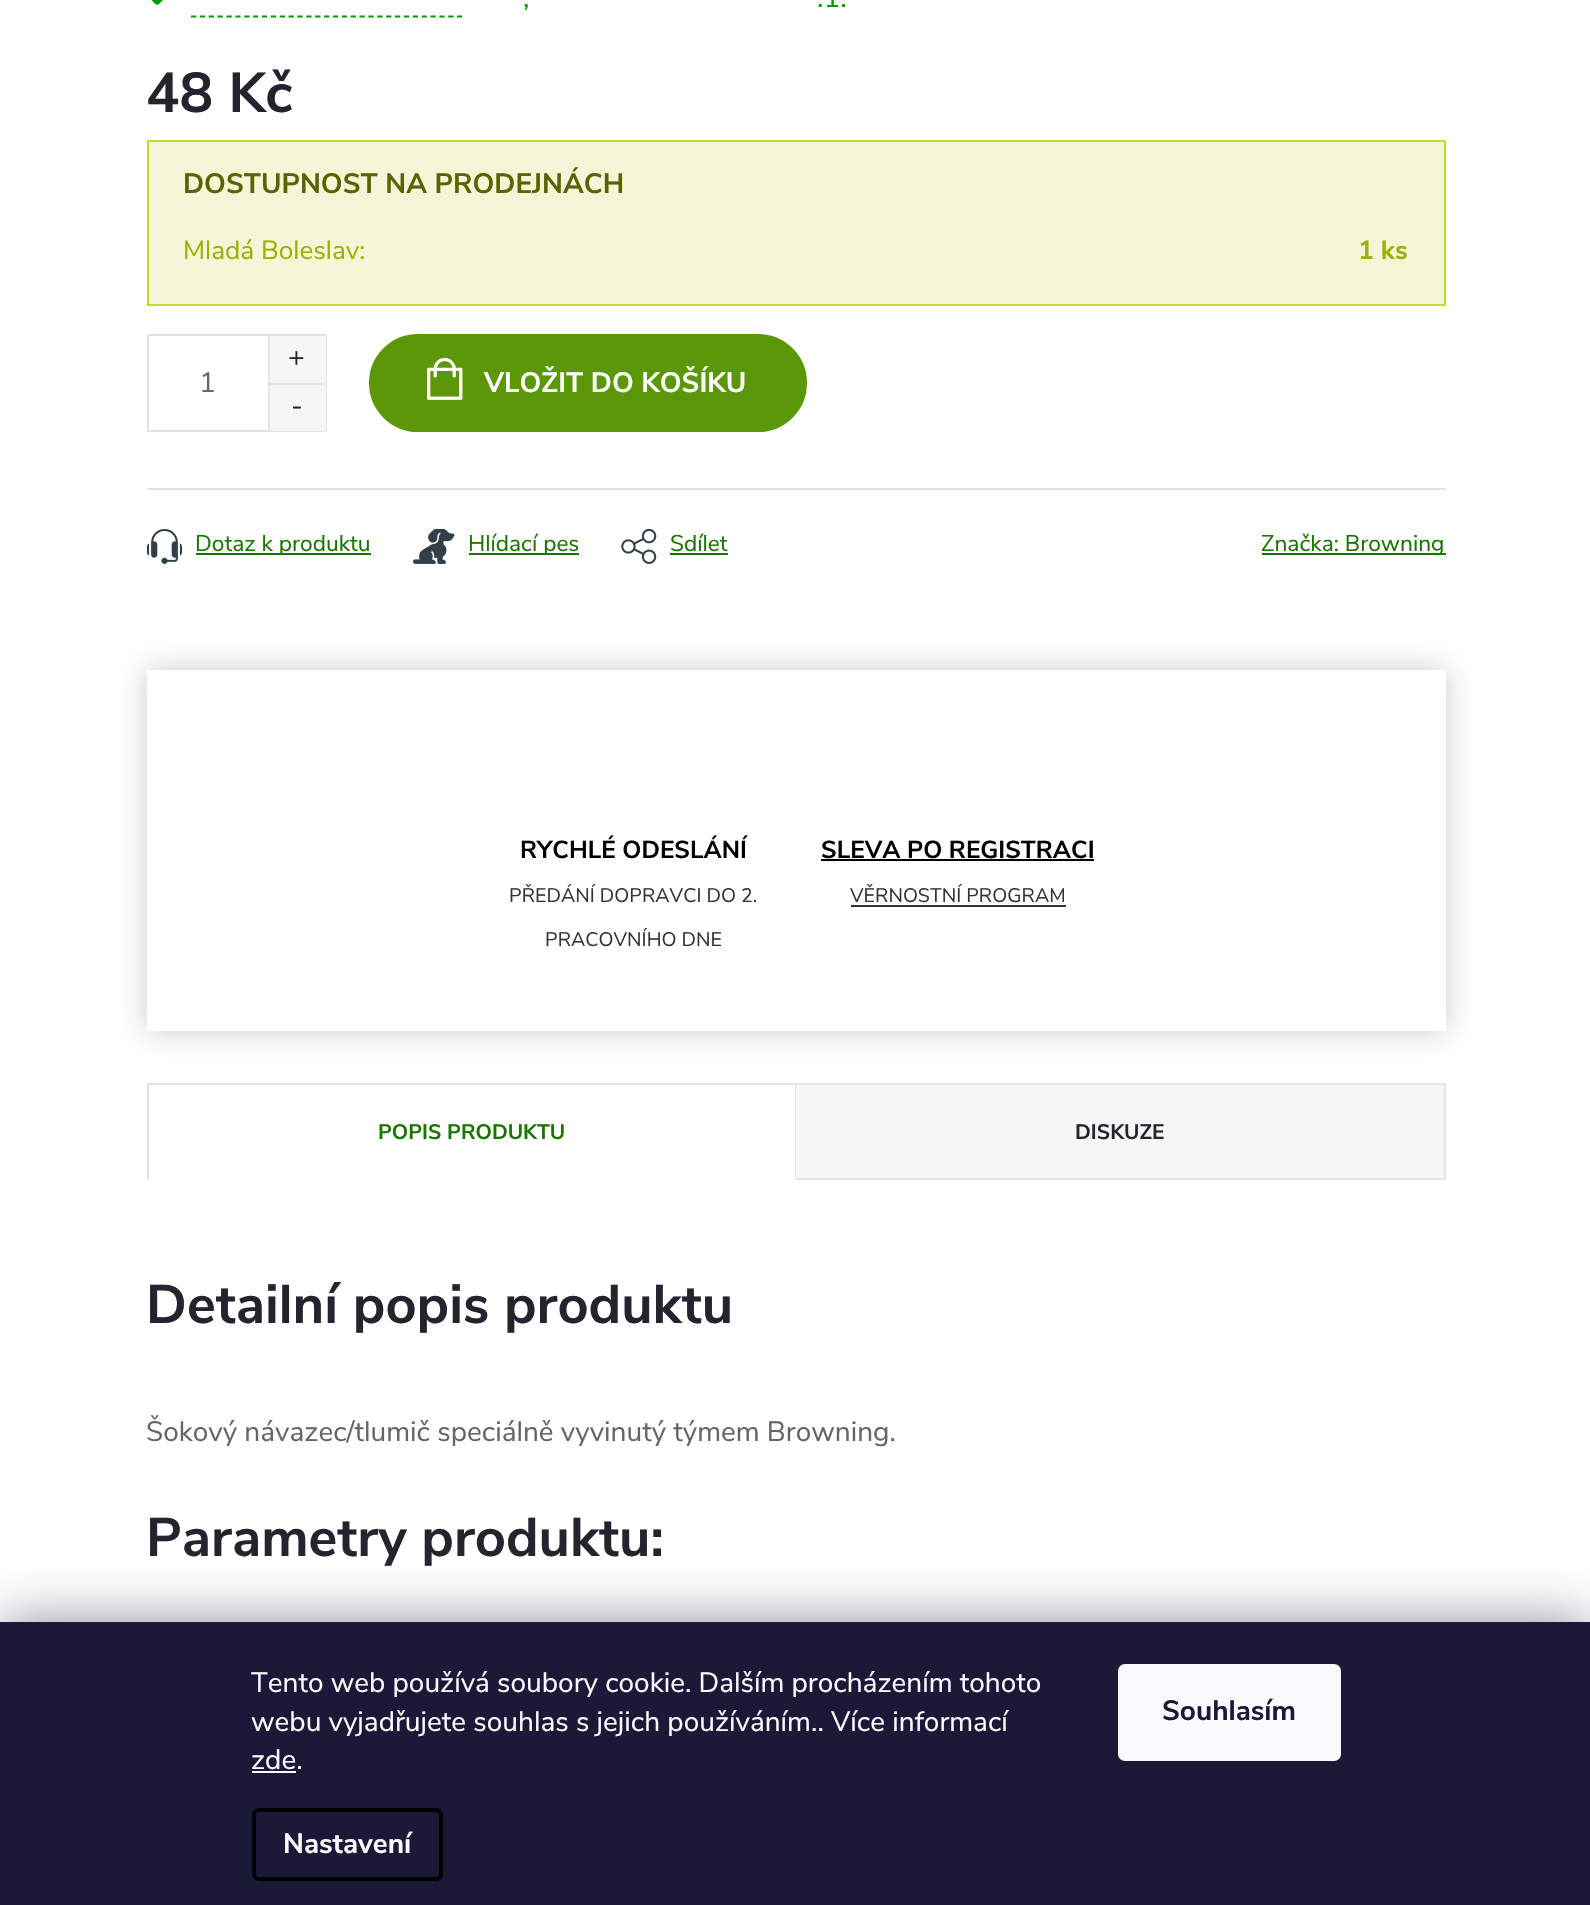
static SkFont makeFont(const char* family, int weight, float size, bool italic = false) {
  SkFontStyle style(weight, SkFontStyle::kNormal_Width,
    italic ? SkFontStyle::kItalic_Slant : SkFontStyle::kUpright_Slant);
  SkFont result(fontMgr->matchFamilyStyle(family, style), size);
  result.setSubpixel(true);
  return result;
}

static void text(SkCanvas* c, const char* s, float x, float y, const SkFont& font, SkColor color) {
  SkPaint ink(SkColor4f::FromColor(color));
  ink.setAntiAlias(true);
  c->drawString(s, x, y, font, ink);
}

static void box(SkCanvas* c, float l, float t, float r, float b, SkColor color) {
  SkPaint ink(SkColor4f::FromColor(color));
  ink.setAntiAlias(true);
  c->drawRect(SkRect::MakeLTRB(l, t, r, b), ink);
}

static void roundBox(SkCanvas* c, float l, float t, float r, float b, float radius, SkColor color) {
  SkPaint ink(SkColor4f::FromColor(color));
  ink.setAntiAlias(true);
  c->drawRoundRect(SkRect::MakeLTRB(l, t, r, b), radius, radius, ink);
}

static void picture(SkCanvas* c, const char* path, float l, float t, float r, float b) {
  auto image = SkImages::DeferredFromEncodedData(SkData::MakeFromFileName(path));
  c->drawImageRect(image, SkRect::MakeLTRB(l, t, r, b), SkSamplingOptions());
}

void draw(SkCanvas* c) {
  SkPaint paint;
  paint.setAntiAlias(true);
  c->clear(0xffffffff);
  picture(c, "img_01.png", 151, 0, 163, 5);
  paint.setStyle(SkPaint::kStroke_Style);
  paint.setStrokeWidth(1.8f);
  paint.setColor(0xff009901);
  paint.setPathEffect(SkDashPathEffect::Make({{5.25f, 3.62f}}, 0));
  c->drawPath(SkPathBuilder().moveTo(191, 16.5f).lineTo(462, 16.5f).detach(), paint);
  paint.setPathEffect(nullptr);
  SkFont face1 = makeFont("Nunito Sans", 400, 28);
  text(c, ",", 523, 7, face1, 0xff009901);
  text(c, ".1.", 817, 7, face1, 0xff009901);
  SkFont face2 = makeFont("Nunito Sans", 700, 56);
  text(c, "48 Kč", 146, 112, face2, 0xff24242e);
  paint.setStyle(SkPaint::kFill_Style);
  paint.setColor(0xfff3f7d8);
  c->drawRect(SkRect::MakeLTRB(148, 141, 1445, 305), paint);
  paint.setStyle(SkPaint::kStroke_Style);
  paint.setStrokeWidth(2);
  paint.setColor(0xffc7db24);
  c->drawRect(SkRect::MakeLTRB(148, 141, 1445, 305), paint);
  SkFont face3 = makeFont("Nunito Sans", 700, 28);
  text(c, "DOSTUPNOST NA PRODEJNÁCH", 183, 193, face3, 0xff596400);
  SkFont face4 = makeFont("Nunito Sans", 400, 26.25f);
  text(c, "Mladá Boleslav:", 183, 259, face4, 0xff9db002);
  SkFont face5 = makeFont("Nunito Sans", 700, 26.25f);
  text(c, "1 ks", 1358, 259, face5, 0xff9db002);
  paint.setColor(0xffe4e4e4);
  c->drawRect(SkRect::MakeLTRB(148, 335, 326, 431), paint);
  box(c, 270, 336, 326, 383, 0xfff6f6f6);
  box(c, 268, 336, 270, 383, 0xffe4e4e4);
  text(c, "+", 288, 366, face1, 0xff24242e);
  text(c, "1", 199, 392, face1, 0xff656570);
  box(c, 270, 385, 326, 431, 0xfff6f6f6);
  box(c, 268, 383, 326, 385, 0xffe4e4e4);
  box(c, 268, 383, 270, 431, 0xffe4e4e4);
  text(c, "-", 291, 415, face1, 0xff24242e);
  paint.setStyle(SkPaint::kFill_Style);
  paint.setColor(0xff5c9709);
  c->drawRoundRect(SkRect::MakeLTRB(370, 335, 806, 431), 48, 48, paint);
  paint.setStyle(SkPaint::kStroke_Style);
  c->drawRoundRect(SkRect::MakeLTRB(370, 335, 806, 431), 48, 48, paint);
  picture(c, "img_02.png", 427, 357, 463, 400);
  text(c, "VLOŽIT DO KOŠÍKU", 484, 392, face3, 0xffffffff);
  box(c, 147, 488, 1446, 490, 0xffe4e4e4);
  picture(c, "img_03.png", 147, 528, 182, 564);
  box(c, 196, 553, 371, 555, 0xff197500);
  SkFont face6 = makeFont("Nunito Sans", 400, 22.75f);
  text(c, "Dotaz k produktu", 195, 551, face6, 0xff197500);
  picture(c, "img_04.png", 413, 528, 455, 564);
  box(c, 469, 553, 579, 555, 0xff197500);
  text(c, "Hlídací pes", 468, 551, face6, 0xff197500);
  picture(c, "img_05.png", 621, 528, 657, 564);
  text(c, "Sdílet", 670, 551, face6, 0xff197500);
  box(c, 670, 553, 728, 555, 0xff197500);
  box(c, 1262, 553, 1446, 555, 0xff197500);
  text(c, "Značka: Browning", 1261, 551, face6, 0xff197500);
  paint.setStyle(SkPaint::kFill_Style);
  paint.setColor(0x33000000);
  paint.setMaskFilter(SkMaskFilter::MakeBlur(kNormal_SkBlurStyle, 13));
  c->drawRect(SkRect::MakeLTRB(147, 670, 1446, 1031), paint);
  paint.setMaskFilter(nullptr);
  box(c, 147, 670, 1446, 1031, 0xffffffff);
  SkFont face7 = makeFont("Nunito Sans", 700, 24.5f);
  text(c, "RYCHLÉ ODESLÁNÍ", 520, 858, face7, 0xff000000);
  SkFont face8 = makeFont("Nunito Sans", 400, 19.6f);
  text(c, "PŘEDÁNÍ DOPRAVCI DO 2.", 509, 902, face8, 0xff333333);
  text(c, "PRACOVNÍHO DNE", 545, 946, face8, 0xff333333);
  text(c, "SLEVA PO REGISTRACI", 821, 858, face7, 0xff000000);
  box(c, 821, 859, 1094, 861, 0xff000000);
  text(c, "VĚRNOSTNÍ PROGRAM", 850, 902, face8, 0xff333333);
  box(c, 851, 905, 1066, 907, 0xff333333);
  box(c, 147, 1083, 1446, 1085, 0xffe4e4e4);
  box(c, 147, 1083, 149, 1180, 0xffe4e4e4);
  box(c, 795, 1085, 796, 1180, 0xffe4e4e4);
  box(c, 795, 1178, 796, 1180, 0xffffffff);
  SkFont face9 = makeFont("Nunito Sans", 700, 21);
  text(c, "POPIS PRODUKTU", 378, 1139, face9, 0xff197500);
  box(c, 796, 1085, 1444, 1178, 0xfff6f6f6);
  box(c, 1444, 1085, 1446, 1180, 0xffe4e4e4);
  box(c, 796, 1178, 1446, 1180, 0xffe4e4e4);
  text(c, "DISKUZE", 1075, 1139, face9, 0xff24242e);
  SkFont face10 = makeFont("Nunito Sans", 700, 54.25f);
  text(c, "Detailní popis produktu", 146, 1323, face10, 0xff24242e);
  text(c, "Šokový návazec/tlumič speciálně vyvinutý týmem Browning.", 146, 1441, face1, 0xff656565);
  text(c, "Parametry produktu:", 146, 1556, face10, 0xff24242e);
  paint.setColor(0x801b1939);
  paint.setMaskFilter(SkMaskFilter::MakeBlur(kNormal_SkBlurStyle, 26));
  c->drawRect(SkRect::MakeLTRB(0, 1622, 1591, 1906), paint);
  paint.setMaskFilter(nullptr);
  box(c, 0, 1622, 1590, 1905, 0xff1a1937);
  text(c, "Tento web používá soubory cookie. Dalším procházením tohoto", 251, 1692, face1, 0xfff8fafb);
  text(c, "webu vyjadřujete souhlas s jejich používáním.. Více informací", 251, 1731, face1, 0xfff8fafb);
  text(c, "zde.", 251, 1769, face1, 0xfff8fafb);
  box(c, 252, 1771, 296, 1773, 0xfff8fafb);
  paint.setStyle(SkPaint::kStroke_Style);
  paint.setStrokeWidth(4);
  paint.setColor(0xff000000);
  c->drawRoundRect(SkRect::MakeLTRB(254, 1810, 441, 1879), 5, 5, paint);
  text(c, "Nastavení", 283, 1853, face3, 0xfff8fafb);
  roundBox(c, 1118, 1664, 1341, 1761, 7, 0xfff8fafb);
  text(c, "Souhlasím", 1162, 1720, face3, 0xff1a1937);
}
